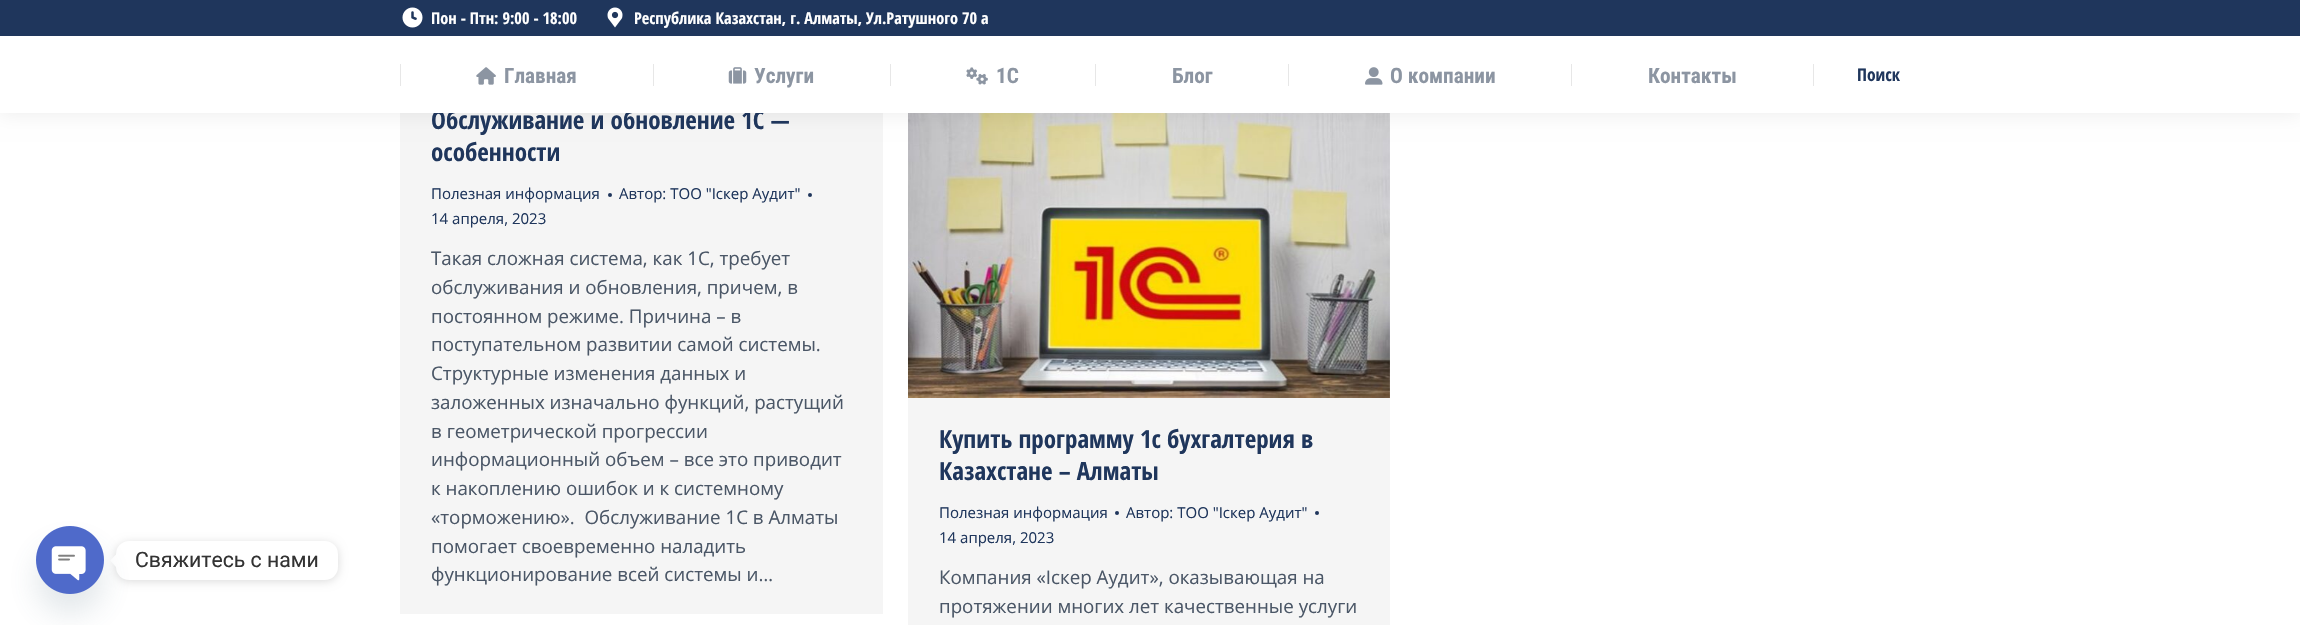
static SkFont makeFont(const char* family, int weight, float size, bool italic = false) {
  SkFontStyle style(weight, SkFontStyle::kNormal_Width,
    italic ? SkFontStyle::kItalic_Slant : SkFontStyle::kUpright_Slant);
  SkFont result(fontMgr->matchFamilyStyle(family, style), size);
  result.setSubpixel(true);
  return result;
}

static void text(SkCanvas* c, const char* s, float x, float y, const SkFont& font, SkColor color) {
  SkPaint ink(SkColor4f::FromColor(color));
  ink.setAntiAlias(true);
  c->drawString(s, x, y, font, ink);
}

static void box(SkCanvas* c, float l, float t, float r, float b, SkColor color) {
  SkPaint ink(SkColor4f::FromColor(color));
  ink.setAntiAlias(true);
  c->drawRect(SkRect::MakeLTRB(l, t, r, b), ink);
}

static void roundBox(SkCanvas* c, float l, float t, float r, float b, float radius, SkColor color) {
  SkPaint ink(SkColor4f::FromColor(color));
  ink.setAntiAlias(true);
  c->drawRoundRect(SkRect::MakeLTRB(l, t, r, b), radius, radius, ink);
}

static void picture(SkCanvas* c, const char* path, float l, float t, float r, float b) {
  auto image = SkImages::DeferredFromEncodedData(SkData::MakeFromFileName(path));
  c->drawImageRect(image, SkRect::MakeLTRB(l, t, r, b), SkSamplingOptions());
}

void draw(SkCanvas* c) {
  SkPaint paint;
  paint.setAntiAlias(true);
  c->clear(0xffffffff);
  box(c, 400, 113, 883, 614, 0xfff5f5f5);
  box(c, 908, 113, 1390, 625, 0xfff5f5f5);
  picture(c, "img_08.png", 908, 113, 1390, 398);
  paint.setColor(0x12000000);
  paint.setMaskFilter(SkMaskFilter::MakeBlur(kNormal_SkBlurStyle, 9.5f));
  c->drawRect(SkRect::MakeLTRB(-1, -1, 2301, 114), paint);
  paint.setMaskFilter(nullptr);
  SkFont face1 = makeFont("Open Sans Condensed", 700, 25);
  text(c, "Обслуживание и обновление 1С —", 431, 129, face1, 0xff1f365c);
  box(c, 0, 36, 2300, 113, 0xffffffff);
  box(c, 0, 0, 2300, 36, 0xff1f365c);
  picture(c, "img_01.png", 402, 7, 423, 28);
  SkFont face2 = makeFont("Open Sans Condensed", 700, 16.25f);
  text(c, "Пон - Птн: 9:00 - 18:00", 431, 24, face2, 0xffffffff);
  picture(c, "img_02.png", 607, 7, 623, 28);
  text(c, "Республика Казахстан, г. Алматы, Ул.Ратушного 70 а", 634, 24, face2, 0xffffffff);
  box(c, 400, 64, 401, 86, 0xffe7e7e7);
  picture(c, "img_03.png", 476, 67, 496, 85);
  SkFont face3 = makeFont("Roboto Condensed", 700, 21.25f);
  text(c, "Главная", 504, 83, face3, 0xff8c95a2);
  box(c, 653, 64, 654, 86, 0xffe7e7e7);
  picture(c, "img_04.png", 728, 67, 747, 84);
  text(c, "Услуги", 754, 83, face3, 0xff8c95a2);
  box(c, 890, 64, 891, 86, 0xffe7e7e7);
  picture(c, "img_05.png", 966, 67, 988, 85);
  text(c, "1С", 996, 83, face3, 0xff8c95a2);
  box(c, 1095, 64, 1096, 86, 0xffe7e7e7);
  text(c, "Блог", 1172, 83, face3, 0xff8c95a2);
  box(c, 1288, 64, 1289, 86, 0xffe7e7e7);
  picture(c, "img_06.png", 1365, 67, 1383, 85);
  text(c, "О компании", 1390, 83, face3, 0xff8c95a2);
  box(c, 1571, 64, 1572, 86, 0xffe7e7e7);
  text(c, "Контакты", 1648, 83, face3, 0xff8c95a2);
  box(c, 1813, 64, 1814, 86, 0xffe7e7e7);
  SkFont face4 = makeFont("Open Sans Condensed", 700, 17.5f);
  text(c, "Поиск", 1857, 81, face4, 0xff1f365c);
  paint.setColor(0x26000000);
  paint.setMaskFilter(SkMaskFilter::MakeBlur(kNormal_SkBlurStyle, 5));
  c->drawRoundRect(SkRect::MakeLTRB(116, 543, 338, 581), 13, 13, paint);
  paint.setMaskFilter(nullptr);
  roundBox(c, 116, 541, 338, 580, 13, 0xffffffff);
  paint.setColor(0xffffffff);
  c->drawPath(SkPathBuilder().moveTo(116, 554.5f).lineTo(116, 567).lineTo(110, 560.5f).close().detach(), paint);
  paint.setColor(0x2949687e);
  paint.setMaskFilter(SkMaskFilter::MakeBlur(kNormal_SkBlurStyle, 15));
  c->drawRoundRect(SkRect::MakeLTRB(36, 546, 104, 614), 34, 34, paint);
  paint.setMaskFilter(nullptr);
  picture(c, "img_07.png", 36, 526, 104, 594);
  SkFont face5 = makeFont("Roboto", 400, 21.25f);
  text(c, "Свяжитесь с нами", 135, 567, face5, 0xff333333);
  text(c, "особенности", 431, 161, face1, 0xff1f365c);
  SkFont face6 = makeFont("Open Sans", 400, 15);
  text(c, "Полезная информация", 431, 199, face6, 0xff1f365c);
  paint.setColor(0xff1f365c);
  c->drawCircle(610, 195, 2, paint);
  text(c, "Автор: ТОО \"Iскер Аудит\"", 619, 199, face6, 0xff1f365c);
  c->drawCircle(810, 195, 2, paint);
  text(c, "14 апреля, 2023", 431, 224, face6, 0xff1f365c);
  SkFont face7 = makeFont("Open Sans", 400, 18.75f);
  text(c, "Такая сложная система, как 1С, требует", 431, 265, face7, 0xff4b5767);
  text(c, "обслуживания и обновления, причем, в", 431, 294, face7, 0xff4b5767);
  text(c, "постоянном режиме. Причина – в", 431, 323, face7, 0xff4b5767);
  text(c, "поступательном развитии самой системы.", 431, 351, face7, 0xff4b5767);
  text(c, "Структурные изменения данных и", 431, 380, face7, 0xff4b5767);
  text(c, "заложенных изначально функций, растущий", 431, 409, face7, 0xff4b5767);
  text(c, "в геометрической прогрессии", 431, 438, face7, 0xff4b5767);
  text(c, "информационный объем – все это приводит", 431, 466, face7, 0xff4b5767);
  text(c, "к накоплению ошибок и к системному", 431, 495, face7, 0xff4b5767);
  text(c, "«торможению».  Обслуживание 1С в Алматы", 431, 524, face7, 0xff4b5767);
  text(c, "помогает своевременно наладить", 431, 553, face7, 0xff4b5767);
  text(c, "функционирование всей системы и…", 431, 581, face7, 0xff4b5767);
  text(c, "Купить программу 1с бухгалтерия в", 939, 448, face1, 0xff1f365c);
  text(c, "Казахстане – Алматы", 939, 480, face1, 0xff1f365c);
  text(c, "Полезная информация", 939, 518, face6, 0xff1f365c);
  c->drawCircle(1117, 513, 2, paint);
  text(c, "Автор: ТОО \"Iскер Аудит\"", 1126, 518, face6, 0xff1f365c);
  c->drawCircle(1317, 513, 2, paint);
  text(c, "14 апреля, 2023", 939, 543, face6, 0xff1f365c);
  text(c, "Компания «Iскер Аудит», оказывающая на", 939, 584, face7, 0xff4b5767);
  text(c, "протяжении многих лет качественные услуги", 939, 613, face7, 0xff4b5767);
}
